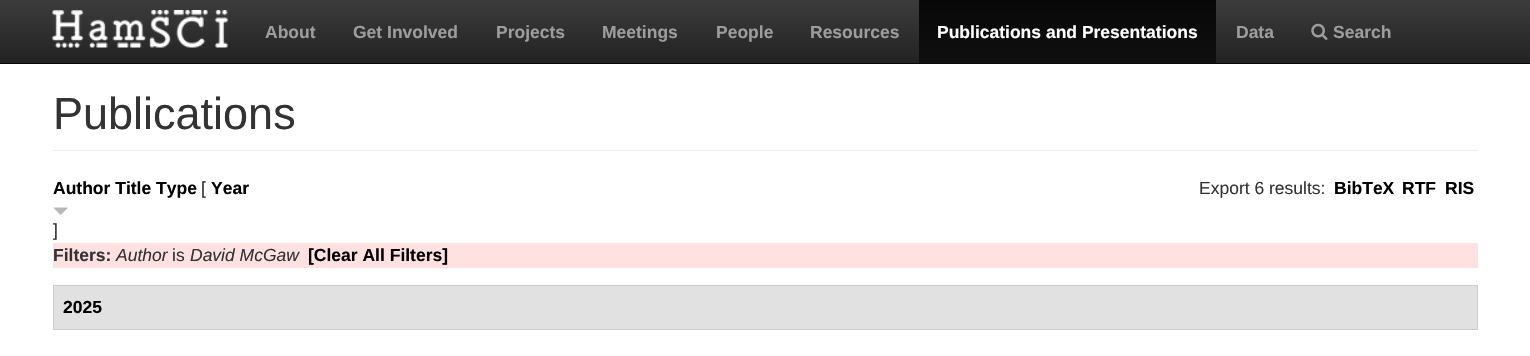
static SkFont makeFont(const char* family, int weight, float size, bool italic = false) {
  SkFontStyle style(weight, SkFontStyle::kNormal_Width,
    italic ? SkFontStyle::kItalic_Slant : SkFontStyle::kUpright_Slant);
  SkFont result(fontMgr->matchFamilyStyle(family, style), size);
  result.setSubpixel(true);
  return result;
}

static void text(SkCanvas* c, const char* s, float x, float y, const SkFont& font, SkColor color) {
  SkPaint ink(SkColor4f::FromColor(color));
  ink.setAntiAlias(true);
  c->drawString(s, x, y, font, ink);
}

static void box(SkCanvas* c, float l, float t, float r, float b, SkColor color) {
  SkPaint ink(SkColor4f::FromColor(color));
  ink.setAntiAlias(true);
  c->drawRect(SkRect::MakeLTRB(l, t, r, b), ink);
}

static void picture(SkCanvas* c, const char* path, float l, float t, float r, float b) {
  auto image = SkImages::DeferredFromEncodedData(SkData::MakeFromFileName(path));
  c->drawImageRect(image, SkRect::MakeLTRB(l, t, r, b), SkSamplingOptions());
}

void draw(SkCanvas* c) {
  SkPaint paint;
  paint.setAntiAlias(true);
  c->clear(0xffffffff);
  {
    const SkColor colors[] = {0xff3c3c3c, 0xff222222};
    const float stops[] = {0, 1};
    const SkPoint ends[] = {{765, 0}, {765, 63}};
    paint.setShader(SkGradientShader::MakeLinear(ends, colors, stops, 2, SkTileMode::kClamp));
    paint.setAlpha(255);
  }
  c->drawRect(SkRect::MakeLTRB(0, 0, 1530, 63), paint);
  box(c, 0, 63, 1530, 64, 0xff080808);
  picture(c, "img_01.png", 52, 10, 228, 48);
  SkFont face1 = makeFont("Liberation Sans", 700, 17.5f);
  text(c, "About", 265, 38, face1, 0xff9d9d9d);
  text(c, "Get Involved", 353, 38, face1, 0xff9d9d9d);
  text(c, "Projects", 496, 38, face1, 0xff9d9d9d);
  text(c, "Meetings", 602, 38, face1, 0xff9d9d9d);
  text(c, "People", 716, 38, face1, 0xff9d9d9d);
  text(c, "Resources", 810, 38, face1, 0xff9d9d9d);
  {
    const SkColor colors[] = {0xff080808, 0xff0f0f0f};
    const float stops[] = {0, 1};
    const SkPoint ends[] = {{1068, 0}, {1068, 63}};
    paint.setShader(SkGradientShader::MakeLinear(ends, colors, stops, 2, SkTileMode::kClamp));
    paint.setAlpha(255);
  }
  c->drawRect(SkRect::MakeLTRB(919, 0, 1216, 63), paint);
  text(c, "Publications and Presentations", 937, 38, face1, 0xffffffff);
  text(c, "Data", 1236, 38, face1, 0xff9d9d9d);
  picture(c, "img_02.png", 1311, 23, 1328, 40);
  text(c, "Search", 1333, 38, face1, 0xff9d9d9d);
  box(c, 53, 150, 1478, 151, 0xffeeeeee);
  SkFont face2 = makeFont("Liberation Sans", 400, 45);
  text(c, "Publications", 53, 129, face2, 0xff333333);
  text(c, "Author Title Type", 53, 194, face1, 0xff000000);
  SkFont face3 = makeFont("Liberation Sans", 400, 17.5f);
  text(c, "[", 201, 194, face3, 0xff333333);
  text(c, "Year", 211, 194, face1, 0xff000000);
  text(c, "Export 6 results:", 1199, 194, face3, 0xff333333);
  text(c, "BibTeX", 1334, 194, face1, 0xff000000);
  text(c, "RTF", 1402, 194, face1, 0xff000000);
  text(c, "RIS", 1445, 194, face1, 0xff000000);
  picture(c, "img_03.png", 53, 207, 68, 216);
  text(c, "]", 53, 236, face3, 0xff333333);
  box(c, 53, 243, 1478, 268, 0xffffe1e1);
  text(c, "Filters:", 53, 261, face1, 0xff333333);
  SkFont face4 = makeFont("Liberation Sans", 400, 17.5f, true);
  text(c, "Author", 116, 261, face4, 0xff333333);
  text(c, "is", 172, 261, face3, 0xff333333);
  text(c, "David McGaw", 190, 261, face4, 0xff333333);
  text(c, "[Clear All Filters]", 308, 261, face1, 0xff000000);
  paint.setShader(nullptr);
  paint.setColor(0xffe1e1e1);
  c->drawRect(SkRect::MakeLTRB(53.5f, 285.5f, 1477.5f, 329.5f), paint);
  paint.setStyle(SkPaint::kStroke_Style);
  paint.setStrokeWidth(1);
  paint.setColor(0xffcccccc);
  c->drawRect(SkRect::MakeLTRB(53.5f, 285.5f, 1477.5f, 329.5f), paint);
  text(c, "2025", 63, 313, face1, 0xff000000);
}
